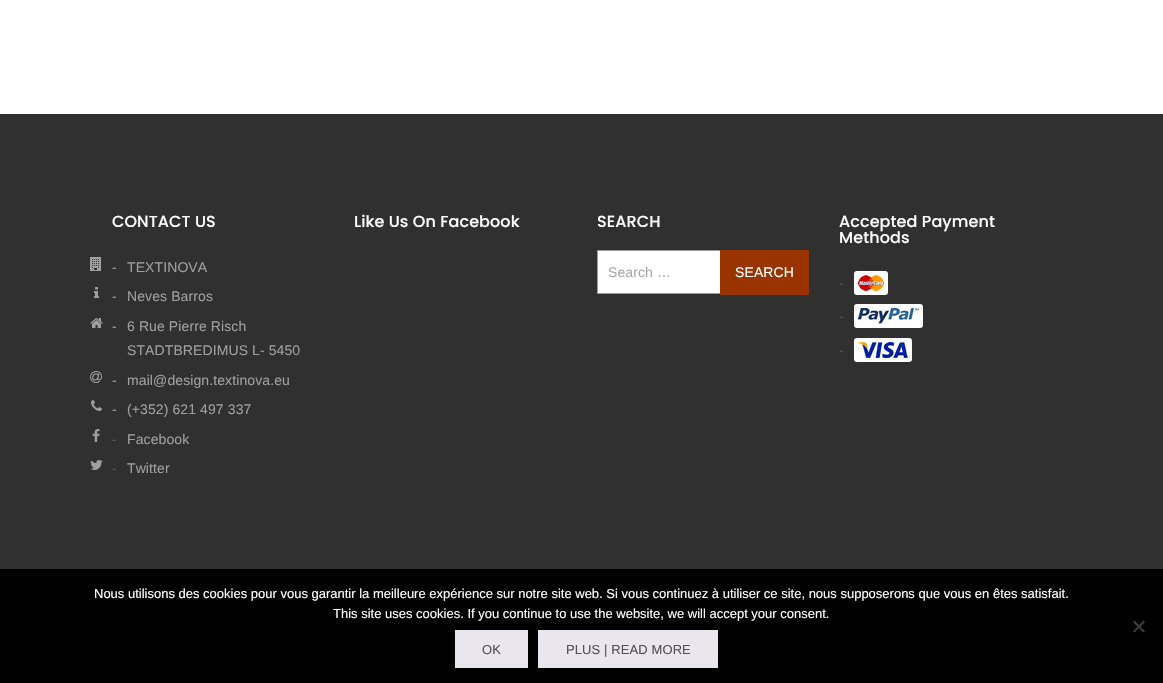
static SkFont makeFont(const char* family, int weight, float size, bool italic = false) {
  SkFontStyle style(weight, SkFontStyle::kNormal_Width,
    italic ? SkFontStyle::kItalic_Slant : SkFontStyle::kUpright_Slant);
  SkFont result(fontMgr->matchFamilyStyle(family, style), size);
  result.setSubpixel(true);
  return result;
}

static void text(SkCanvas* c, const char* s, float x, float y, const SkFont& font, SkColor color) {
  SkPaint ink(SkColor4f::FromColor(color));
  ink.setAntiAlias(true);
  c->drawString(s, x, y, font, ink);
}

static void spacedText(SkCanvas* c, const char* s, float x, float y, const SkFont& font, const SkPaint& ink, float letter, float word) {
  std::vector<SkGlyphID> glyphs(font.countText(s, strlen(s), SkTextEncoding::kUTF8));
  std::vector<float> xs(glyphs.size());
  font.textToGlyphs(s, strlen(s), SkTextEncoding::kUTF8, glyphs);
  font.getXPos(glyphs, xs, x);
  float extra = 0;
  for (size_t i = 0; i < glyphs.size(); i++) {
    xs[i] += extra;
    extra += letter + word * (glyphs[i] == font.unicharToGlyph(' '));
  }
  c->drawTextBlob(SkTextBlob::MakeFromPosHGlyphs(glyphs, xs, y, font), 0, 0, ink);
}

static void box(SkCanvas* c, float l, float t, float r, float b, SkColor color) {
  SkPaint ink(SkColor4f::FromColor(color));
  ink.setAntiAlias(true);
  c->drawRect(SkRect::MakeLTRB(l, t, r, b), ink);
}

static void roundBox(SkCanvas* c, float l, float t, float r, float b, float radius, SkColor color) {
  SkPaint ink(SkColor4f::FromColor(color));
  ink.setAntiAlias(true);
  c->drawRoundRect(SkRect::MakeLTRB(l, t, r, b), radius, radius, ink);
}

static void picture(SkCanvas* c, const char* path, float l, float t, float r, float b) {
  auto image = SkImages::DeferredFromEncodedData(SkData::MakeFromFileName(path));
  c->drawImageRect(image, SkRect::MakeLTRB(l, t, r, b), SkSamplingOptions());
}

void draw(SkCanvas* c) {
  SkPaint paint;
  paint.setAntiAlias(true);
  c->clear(0xffffffff);
  box(c, 0, 114, 1163, 569, 0xff303030);
  SkFont face1 = makeFont("Poppins", 500, 16);
  paint.setColor(0xffffffff);
  spacedText(c, "CONTACT US", 112, 227, face1, paint, 0.1f, 0);
  picture(c, "img_01.png", 90, 257, 101, 271);
  SkFont face2 = makeFont("Arimo", 400, 14);
  paint.setColor(0xff9f9f9f);
  spacedText(c, "-", 112, 272, face2, paint, 0.1f, 0);
  spacedText(c, "TEXTINOVA", 127, 272, face2, paint, 0.1f, 0);
  picture(c, "img_02.png", 94, 287, 99, 298);
  spacedText(c, "-", 112, 301, face2, paint, 0.1f, 0);
  spacedText(c, "Neves Barros", 127, 301, face2, paint, 0.1f, 0);
  picture(c, "img_03.png", 90, 318, 103, 328);
  spacedText(c, "-", 112, 331, face2, paint, 0.1f, 0);
  spacedText(c, "6 Rue Pierre Risch", 127, 331, face2, paint, 0.1f, 0);
  spacedText(c, "STADTBREDIMUS L- 5450", 127, 355, face2, paint, 0.1f, 0);
  picture(c, "img_04.png", 90, 371, 102, 383);
  spacedText(c, "-", 112, 385, face2, paint, 0.1f, 0);
  spacedText(c, "mail@design.textinova.eu", 127, 385, face2, paint, 0.1f, 0);
  picture(c, "img_05.png", 91, 400, 102, 411);
  spacedText(c, "-", 112, 414, face2, paint, 0.1f, 0);
  spacedText(c, "(+352) 621 497 337", 127, 414, face2, paint, 0.1f, 0);
  picture(c, "img_06.png", 92, 429, 100, 442);
  paint.setColor(0xff5a5254);
  spacedText(c, "-", 112, 444, face2, paint, 0.1f, 0);
  paint.setColor(0xff9f9f9f);
  spacedText(c, "Facebook", 127, 444, face2, paint, 0.1f, 0);
  picture(c, "img_07.png", 90, 460, 103, 470);
  paint.setColor(0xff5a5254);
  spacedText(c, "-", 112, 473, face2, paint, 0.1f, 0);
  paint.setColor(0xff9f9f9f);
  spacedText(c, "Twitter", 127, 473, face2, paint, 0.1f, 0);
  paint.setColor(0xffffffff);
  spacedText(c, "Like Us On Facebook", 354, 227, face1, paint, 0.1f, 0);
  spacedText(c, "SEARCH", 597, 227, face1, paint, 0.1f, 0);
  box(c, 598, 251, 720, 293, 0xffffffff);
  paint.setStyle(SkPaint::kStroke_Style);
  paint.setStrokeWidth(1);
  paint.setColor(0xff9d9a9b);
  c->drawRect(SkRect::MakeLTRB(597.5f, 250.5f, 808.5f, 293.5f), paint);
  paint.setStyle(SkPaint::kFill_Style);
  paint.setColor(0xffa9a9a9);
  spacedText(c, "Search …", 608, 277, face2, paint, 0.1f, 0);
  box(c, 720, 250, 809, 295, 0xff993300);
  paint.setColor(0xffffffff);
  spacedText(c, "SEARCH", 735, 277, face2, paint, 0.1f, 0);
  spacedText(c, "Accepted Payment", 839, 227, face1, paint, 0.1f, 0);
  spacedText(c, "Methods", 839, 243, face1, paint, 0.1f, 0);
  paint.setColor(0xff5a5254);
  spacedText(c, "-", 839, 288, face2, paint, 0.1f, 0);
  roundBox(c, 854, 271, 888, 295, 3, 0xffffffff);
  picture(c, "img_08.png", 858, 275, 884, 291);
  spacedText(c, "-", 839, 321, face2, paint, 0.1f, 0);
  roundBox(c, 854, 304, 923, 328, 3, 0xffffffff);
  picture(c, "img_09.png", 858, 308, 919, 324);
  spacedText(c, "-", 839, 355, face2, paint, 0.1f, 0);
  roundBox(c, 854, 338, 912, 362, 3, 0xffffffff);
  picture(c, "img_10.png", 858, 342, 908, 358);
  box(c, 0, 569, 1163, 683, 0xff000000);
  SkFont face3 = makeFont("Liberation Sans", 400, 13);
  text(c, "Nous utilisons des cookies pour vous garantir la meilleure expérience sur notre site web. Si vous continuez à utiliser ce site, nous supposerons que vous en êtes satisfait.", 94, 598, face3, 0xffffffff);
  text(c, "This site uses cookies. If you continue to use the website, we will accept your consent.", 333, 618, face3, 0xffffffff);
  paint.setColor(0xff404040);
  c->drawPath(SkPathBuilder().moveTo(1143.5f, 620.5f).lineTo(1145, 622).lineTo(1134.5f, 632.5f).lineTo(1133, 631.5f).close().detach(), paint);
  c->drawPath(SkPathBuilder().moveTo(1133, 622).lineTo(1134.5f, 620.5f).lineTo(1145, 631.5f).lineTo(1143.5f, 632.5f).close().detach(), paint);
  box(c, 455, 630, 528, 668, 0xffe9e6ed);
  SkFont face4 = makeFont("Arimo", 400, 13);
  paint.setColor(0xff515151);
  spacedText(c, "OK", 482, 654, face4, paint, 0.1f, 0);
  box(c, 538, 630, 718, 668, 0xffe9e6ed);
  spacedText(c, "PLUS | READ MORE", 566, 654, face4, paint, 0.1f, 0);
}
